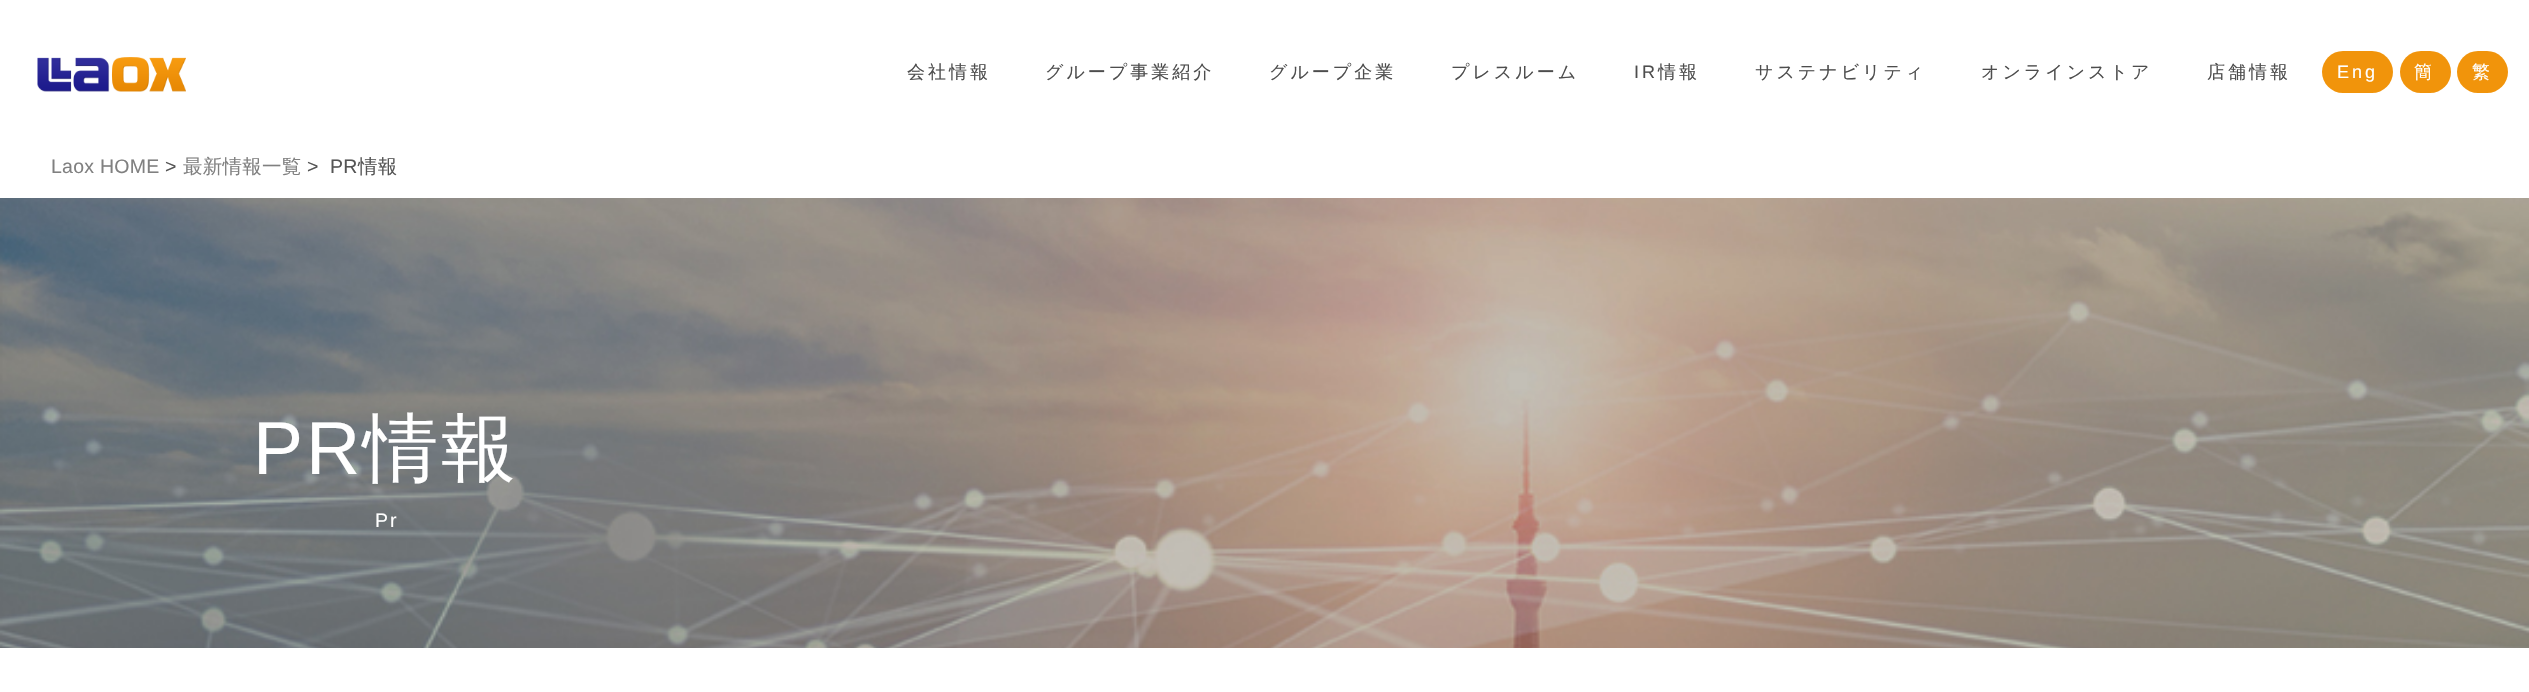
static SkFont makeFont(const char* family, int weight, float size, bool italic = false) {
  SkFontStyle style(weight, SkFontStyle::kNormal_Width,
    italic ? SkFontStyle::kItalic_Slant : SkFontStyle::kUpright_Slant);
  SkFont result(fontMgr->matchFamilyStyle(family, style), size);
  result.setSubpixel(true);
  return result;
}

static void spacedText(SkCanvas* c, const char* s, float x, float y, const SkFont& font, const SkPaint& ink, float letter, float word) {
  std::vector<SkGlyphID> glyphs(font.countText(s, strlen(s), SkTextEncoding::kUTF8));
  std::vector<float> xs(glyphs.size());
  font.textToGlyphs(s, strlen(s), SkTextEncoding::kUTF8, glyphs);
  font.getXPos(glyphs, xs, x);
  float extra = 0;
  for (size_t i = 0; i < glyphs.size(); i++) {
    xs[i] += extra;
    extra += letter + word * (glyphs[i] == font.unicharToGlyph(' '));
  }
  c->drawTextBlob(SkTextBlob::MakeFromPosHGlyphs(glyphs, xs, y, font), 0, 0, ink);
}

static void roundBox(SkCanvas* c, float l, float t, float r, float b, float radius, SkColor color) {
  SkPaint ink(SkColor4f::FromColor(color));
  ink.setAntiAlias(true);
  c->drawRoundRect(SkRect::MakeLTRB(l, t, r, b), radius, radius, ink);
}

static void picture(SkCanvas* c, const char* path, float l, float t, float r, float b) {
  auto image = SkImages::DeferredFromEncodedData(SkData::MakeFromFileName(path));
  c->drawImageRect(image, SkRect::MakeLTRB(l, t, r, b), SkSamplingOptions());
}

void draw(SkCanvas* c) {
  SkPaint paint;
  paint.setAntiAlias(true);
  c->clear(0xffffffff);
  picture(c, "img_01.png", 37, 57, 186, 92);
  SkFont face1 = makeFont("WenQuanYi Zen Hei", 500, 18);
  paint.setColor(0xff4d4d4d);
  spacedText(c, "会社情報", 907, 78, face1, paint, 3, 0);
  spacedText(c, "グループ事業紹介", 1045, 78, face1, paint, 3, 0);
  spacedText(c, "グループ企業", 1269, 78, face1, paint, 3, 0);
  spacedText(c, "プレスルーム", 1451, 78, face1, paint, 3, 0);
  SkFont face2 = makeFont("Liberation Sans", 400, 18);
  spacedText(c, "IR", 1634, 78, face2, paint, 3, 0);
  spacedText(c, "情報", 1658, 78, face1, paint, 3, 0);
  spacedText(c, "サステナビリティ", 1755, 78, face1, paint, 3, 0);
  spacedText(c, "オンラインストア", 1981, 78, face1, paint, 3, 0);
  spacedText(c, "店舗情報", 2207, 78, face1, paint, 3, 0);
  roundBox(c, 2322, 51, 2393, 93, 21, 0xfff1940b);
  paint.setColor(0xffffffff);
  spacedText(c, "Eng", 2337, 78, face2, paint, 3, 0);
  roundBox(c, 2400, 51, 2451, 93, 21, 0xfff1940b);
  spacedText(c, "簡", 2414, 78, face1, paint, 3, 0);
  roundBox(c, 2457, 51, 2508, 93, 21, 0xfff1940b);
  spacedText(c, "繁", 2472, 78, face1, paint, 3, 0);
  SkFont face3 = makeFont("Liberation Sans", 400, 19.5f);
  paint.setColor(0xff808080);
  spacedText(c, "Laox HOME", 51, 173, face3, paint, 0.25f, 0);
  paint.setColor(0xff555555);
  spacedText(c, ">", 165, 173, face3, paint, 0.25f, 0);
  SkFont face4 = makeFont("WenQuanYi Zen Hei", 500, 19.5f);
  paint.setColor(0xff808080);
  spacedText(c, "最新情報一覧", 183, 173, face4, paint, 0.25f, 0);
  paint.setColor(0xff555555);
  spacedText(c, ">", 307, 173, face3, paint, 0.25f, 0);
  spacedText(c, "PR", 330, 173, face3, paint, 0.25f, 0);
  spacedText(c, "情報", 358, 173, face4, paint, 0.25f, 0);
  picture(c, "img_02.png", 0, 198, 2529, 648);
  SkFont face5 = makeFont("Liberation Sans", 400, 75);
  paint.setColor(0xffffffff);
  spacedText(c, "PR", 253, 474, face5, paint, 3, 0);
  SkFont face6 = makeFont("WenQuanYi Zen Hei", 500, 75);
  spacedText(c, "情報", 363, 474, face6, paint, 3, 0);
  spacedText(c, "Pr", 375, 527, face3, paint, 2, 0);
}
